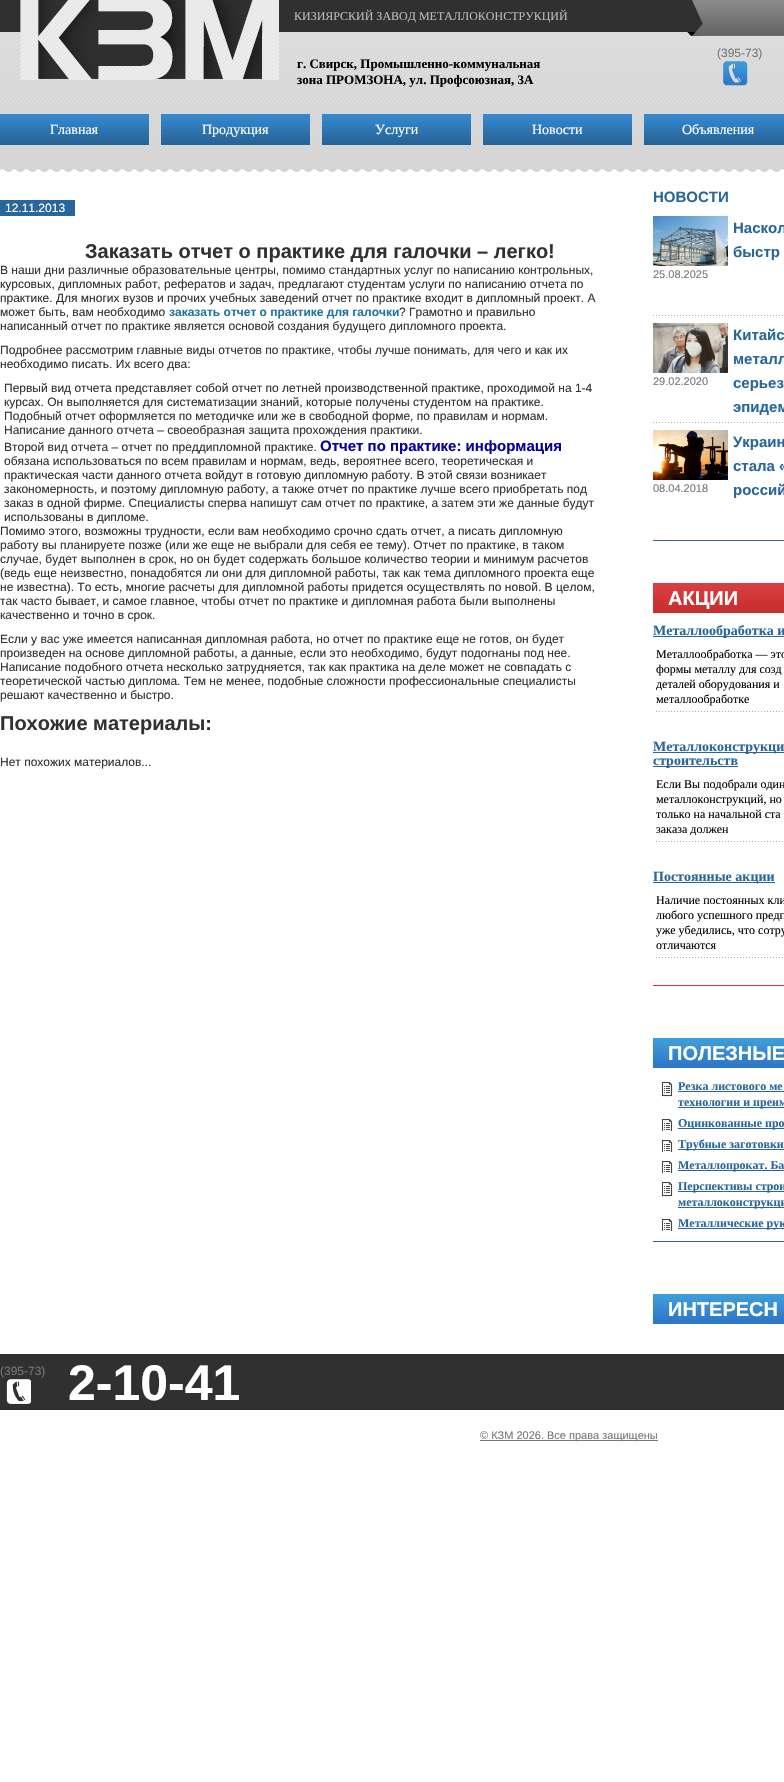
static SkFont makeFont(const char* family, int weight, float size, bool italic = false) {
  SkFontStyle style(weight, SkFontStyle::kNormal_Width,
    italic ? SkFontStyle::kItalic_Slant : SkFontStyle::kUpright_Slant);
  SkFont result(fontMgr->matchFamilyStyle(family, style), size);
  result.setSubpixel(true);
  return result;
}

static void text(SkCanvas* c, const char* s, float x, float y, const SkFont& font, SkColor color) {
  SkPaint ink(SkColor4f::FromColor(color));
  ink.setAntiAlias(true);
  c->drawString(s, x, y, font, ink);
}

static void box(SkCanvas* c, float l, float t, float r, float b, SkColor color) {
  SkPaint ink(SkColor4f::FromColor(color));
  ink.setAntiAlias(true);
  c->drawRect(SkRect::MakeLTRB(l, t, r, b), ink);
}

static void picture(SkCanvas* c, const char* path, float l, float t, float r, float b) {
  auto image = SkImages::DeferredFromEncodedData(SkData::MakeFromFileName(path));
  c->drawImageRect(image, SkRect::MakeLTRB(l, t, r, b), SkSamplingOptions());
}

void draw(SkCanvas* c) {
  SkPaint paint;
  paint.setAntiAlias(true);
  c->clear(0xffffffff);
  picture(c, "img_01.png", 0, 32, 784, 173);
  box(c, 0, 0, 687, 32, 0xff303030);
  picture(c, "img_02.png", 20, 0, 279, 80);
  picture(c, "img_03.png", 687, 0, 784, 36);
  SkFont face1 = makeFont("Liberation Serif", 400, 12);
  text(c, "КИЗИЯРСКИЙ ЗАВОД МЕТАЛЛОКОНСТРУКЦИЙ", 294, 20, face1, 0xffb9b9b9);
  SkFont face2 = makeFont("Liberation Sans", 400, 12);
  text(c, "(395-73)", 717, 57, face2, 0xff777777);
  picture(c, "img_04.png", 723, 61, 748, 86);
  SkFont face3 = makeFont("Liberation Serif", 700, 13);
  text(c, "г. Свирск, Промышленно-коммунальная", 297, 68, face3, 0xff010101);
  text(c, "зона ПРОМЗОНА, ул. Профсоюзная, 3А", 297, 84, face3, 0xff010101);
  picture(c, "img_05.png", 0, 114, 149, 145);
  SkFont face4 = makeFont("Liberation Serif", 400, 14);
  text(c, "Главная", 50, 134, face4, 0xffffffff);
  picture(c, "img_05.png", 161, 114, 310, 145);
  text(c, "Продукция", 202, 134, face4, 0xffffffff);
  picture(c, "img_05.png", 322, 114, 471, 145);
  text(c, "Услуги", 375, 134, face4, 0xffffffff);
  picture(c, "img_05.png", 483, 114, 632, 145);
  text(c, "Новости", 532, 134, face4, 0xffffffff);
  picture(c, "img_06.png", 644, 114, 784, 145);
  text(c, "Объявления", 682, 134, face4, 0xffffffff);
  box(c, 0, 200, 75, 216, 0xff28669b);
  text(c, "12.11.2013", 5, 212, face2, 0xffffffff);
  SkFont face5 = makeFont("Liberation Sans", 700, 20);
  text(c, "Заказать отчет о практике для галочки – легко!", 85, 258, face5, 0xff313131);
  text(c, "В наши дни различные образовательные центры, помимо стандартных услуг по написанию контрольных,", 0, 274, face2, 0xff313131);
  text(c, "курсовых, дипломных работ, рефератов и задач, предлагают студентам услуги по написанию отчета по", 0, 288, face2, 0xff313131);
  text(c, "практике. Для многих вузов и прочих учебных заведений отчет по практике входит в дипломный проект. А", 0, 302, face2, 0xff313131);
  text(c, "может быть, вам необходимо", 0, 316, face2, 0xff313131);
  SkFont face6 = makeFont("Liberation Sans", 700, 12);
  text(c, "заказать отчет о практике для галочки", 169, 316, face6, 0xff21759b);
  text(c, "? Грамотно и правильно", 399, 316, face2, 0xff313131);
  text(c, "написанный отчет по практике является основой создания будущего дипломного проекта.", 0, 330, face2, 0xff313131);
  text(c, "Подробнее рассмотрим главные виды отчетов по практике, чтобы лучше понимать, для чего и как их", 0, 354, face2, 0xff313131);
  text(c, "необходимо писать. Их всего два:", 0, 368, face2, 0xff313131);
  text(c, "Первый вид отчета представляет собой отчет по летней производственной практике, проходимой на 1-4", 4, 392, face2, 0xff313131);
  text(c, "курсах. Он выполняется для систематизации знаний, которые получены студентом на практике.", 4, 406, face2, 0xff313131);
  text(c, "Подобный отчет оформляется по методичке или же в свободной форме, по правилам и нормам.", 4, 420, face2, 0xff313131);
  text(c, "Написание данного отчета – своеобразная защита прохождения практики.", 4, 434, face2, 0xff313131);
  text(c, "Второй вид отчета – отчет по преддипломной практике.", 4, 451, face2, 0xff313131);
  SkFont face7 = makeFont("Liberation Sans", 700, 15);
  text(c, "Отчет по практике: информация", 320, 451, face7, 0xff06009b);
  text(c, "обязана использоваться по всем правилам и нормам, ведь, вероятнее всего, теоретическая и", 4, 465, face2, 0xff313131);
  text(c, "практическая части данного отчета войдут в готовую дипломную работу. В этой связи возникает", 4, 479, face2, 0xff313131);
  text(c, "закономерность, и поэтому дипломную работу, а также отчет по практике лучше всего приобретать под", 4, 493, face2, 0xff313131);
  text(c, "заказ в одной фирме. Специалисты сперва напишут сам отчет по практике, а затем эти же данные будут", 4, 507, face2, 0xff313131);
  text(c, "использованы в дипломе.", 4, 521, face2, 0xff313131);
  text(c, "Помимо этого, возможны трудности, если вам необходимо срочно сдать отчет, а писать дипломную", 0, 535, face2, 0xff313131);
  text(c, "работу вы планируете позже (или же еще не выбрали для себя ее тему). Отчет по практике, в таком", 0, 549, face2, 0xff313131);
  text(c, "случае, будет выполнен в срок, но он будет содержать большое количество теории и минимум расчетов", 0, 563, face2, 0xff313131);
  text(c, "(ведь еще неизвестно, понадобятся ли они для дипломной работы, так как тема дипломного проекта еще", 0, 577, face2, 0xff313131);
  text(c, "не известна). То есть, многие расчеты для дипломной работы придется осуществлять по новой. В целом,", 0, 591, face2, 0xff313131);
  text(c, "так часто бывает, и самое главное, чтобы отчет по практике и дипломная работа были выполнены", 0, 605, face2, 0xff313131);
  text(c, "качественно и точно в срок.", 0, 619, face2, 0xff313131);
  text(c, "Если у вас уже имеется написанная дипломная работа, но отчет по практике еще не готов, он будет", 0, 643, face2, 0xff313131);
  text(c, "произведен на основе дипломной работы, а данные, если это необходимо, будут подогнаны под нее.", 0, 657, face2, 0xff313131);
  text(c, "Написание подобного отчета несколько затрудняется, так как практика на деле может не совпадать с", 0, 671, face2, 0xff313131);
  text(c, "теоретической частью диплома. Тем не менее, подобные сложности профессиональные специалисты", 0, 685, face2, 0xff313131);
  text(c, "решают качественно и быстро.", 0, 699, face2, 0xff313131);
  text(c, "Похожие материалы:", 0, 730, face5, 0xff313131);
  text(c, "Нет похожих материалов...", 0, 766, face2, 0xff313131);
  text(c, "НОВОСТИ", 653, 202, face7, 0xff28669b);
  picture(c, "img_07.png", 653, 315, 783, 316);
  text(c, "Наскол", 733, 233, face7, 0xff28669b);
  text(c, "быстр", 733, 257, face7, 0xff28669b);
  picture(c, "img_08.png", 653, 216, 728, 266);
  SkFont face8 = makeFont("Liberation Sans", 400, 11);
  text(c, "25.08.2025", 653, 278, face8, 0xff777777);
  picture(c, "img_07.png", 653, 422, 783, 423);
  picture(c, "img_09.png", 653, 323, 728, 373);
  text(c, "29.02.2020", 653, 385, face8, 0xff777777);
  text(c, "Китайс", 733, 340, face7, 0xff28669b);
  text(c, "металл", 733, 364, face7, 0xff28669b);
  text(c, "серьез", 733, 388, face7, 0xff28669b);
  text(c, "эпидем", 733, 412, face7, 0xff28669b);
  picture(c, "img_10.png", 653, 430, 728, 480);
  text(c, "08.04.2018", 653, 492, face8, 0xff777777);
  text(c, "Украин", 733, 447, face7, 0xff28669b);
  text(c, "стала «", 733, 471, face7, 0xff28669b);
  text(c, "россий", 733, 495, face7, 0xff28669b);
  box(c, 653, 540, 784, 541, 0xff28669b);
  picture(c, "img_11.png", 653, 583, 784, 613);
  text(c, "АКЦИИ", 668, 605, face5, 0xffffffff);
  box(c, 653, 636, 784, 637, 0xff28669b);
  SkFont face9 = makeFont("Liberation Serif", 700, 14);
  text(c, "Металлообработка и", 653, 635, face9, 0xff28669b);
  picture(c, "img_12.png", 656, 711, 783, 712);
  text(c, "Металлообработка — это", 656, 658, face1, 0xff010101);
  text(c, "формы металлу для созд", 656, 673, face1, 0xff010101);
  text(c, "деталей оборудования и", 656, 688, face1, 0xff010101);
  text(c, "металлообработке", 656, 703, face1, 0xff010101);
  box(c, 653, 752, 784, 753, 0xff28669b);
  text(c, "Металлоконструкци", 653, 751, face9, 0xff28669b);
  box(c, 653, 766, 738, 767, 0xff28669b);
  text(c, "строительств", 653, 765, face9, 0xff28669b);
  picture(c, "img_12.png", 656, 841, 783, 842);
  text(c, "Если Вы подобрали один", 656, 788, face1, 0xff010101);
  text(c, "металлоконструкций, но", 656, 803, face1, 0xff010101);
  text(c, "только на начальной ста", 656, 818, face1, 0xff010101);
  text(c, "заказа должен", 656, 833, face1, 0xff010101);
  box(c, 653, 882, 775, 883, 0xff28669b);
  text(c, "Постоянные акции", 653, 881, face9, 0xff28669b);
  picture(c, "img_12.png", 656, 957, 783, 958);
  text(c, "Наличие постоянных кли", 656, 904, face1, 0xff010101);
  text(c, "любого успешного предп", 656, 919, face1, 0xff010101);
  text(c, "уже убедились, что сотру", 656, 934, face1, 0xff010101);
  text(c, "отличаются", 656, 949, face1, 0xff010101);
  box(c, 653, 985, 784, 986, 0xffd03636);
  picture(c, "img_13.png", 653, 1038, 784, 1068);
  text(c, "ПОЛЕЗНЫЕ", 668, 1060, face5, 0xffffffff);
  picture(c, "img_14.png", 662, 1082, 673, 1097);
  SkFont face10 = makeFont("Liberation Serif", 700, 12);
  text(c, "Резка листового ме", 678, 1090, face10, 0xff28669b);
  box(c, 678, 1091, 784, 1092, 0xff28669b);
  box(c, 678, 1107, 784, 1108, 0xff28669b);
  text(c, "технологии и преим", 678, 1106, face10, 0xff28669b);
  picture(c, "img_15.png", 662, 1119, 673, 1131);
  box(c, 678, 1128, 784, 1129, 0xff28669b);
  text(c, "Оцинкованные про", 678, 1127, face10, 0xff28669b);
  picture(c, "img_15.png", 662, 1140, 673, 1152);
  box(c, 678, 1149, 784, 1150, 0xff28669b);
  text(c, "Трубные заготовки", 678, 1148, face10, 0xff28669b);
  picture(c, "img_15.png", 662, 1161, 673, 1173);
  box(c, 678, 1170, 784, 1171, 0xff28669b);
  text(c, "Металлопрокат. Ба", 678, 1169, face10, 0xff28669b);
  picture(c, "img_14.png", 662, 1182, 673, 1197);
  box(c, 678, 1191, 784, 1192, 0xff28669b);
  text(c, "Перспективы строи", 678, 1190, face10, 0xff28669b);
  box(c, 678, 1207, 784, 1208, 0xff28669b);
  text(c, "металлоконструкци", 678, 1206, face10, 0xff28669b);
  picture(c, "img_15.png", 662, 1219, 673, 1231);
  box(c, 678, 1228, 784, 1229, 0xff28669b);
  text(c, "Металлические рук", 678, 1227, face10, 0xff28669b);
  box(c, 653, 1241, 784, 1242, 0xff28669b);
  picture(c, "img_13.png", 653, 1294, 784, 1324);
  text(c, "ИНТЕРЕСН", 668, 1316, face5, 0xffffffff);
  box(c, 0, 1354, 784, 1410, 0xff303030);
  text(c, "(395-73)", 0, 1375, face2, 0xff777777);
  SkFont face11 = makeFont("Liberation Sans", 700, 50);
  text(c, "2-10-41", 68, 1400, face11, 0xffffffff);
  picture(c, "img_16.png", 6, 1379, 31, 1404);
  box(c, 480, 1440, 658, 1441, 0xff777777);
  text(c, "© КЗМ 2026. Все права защищены", 480, 1439, face8, 0xff777777);
}
